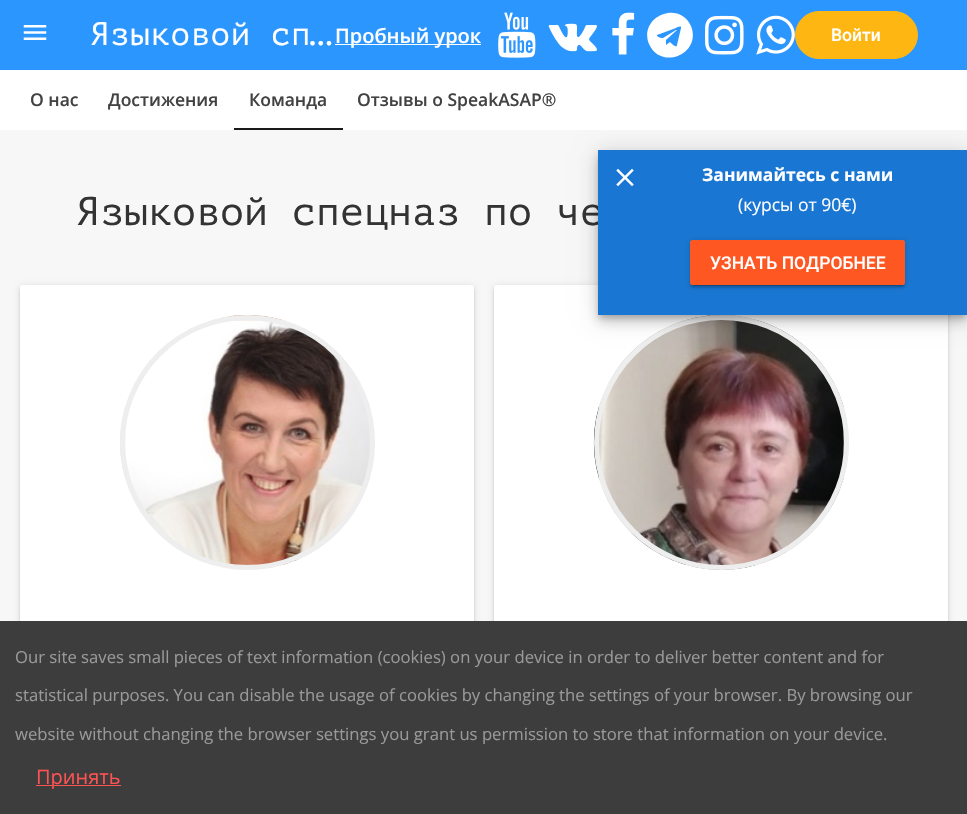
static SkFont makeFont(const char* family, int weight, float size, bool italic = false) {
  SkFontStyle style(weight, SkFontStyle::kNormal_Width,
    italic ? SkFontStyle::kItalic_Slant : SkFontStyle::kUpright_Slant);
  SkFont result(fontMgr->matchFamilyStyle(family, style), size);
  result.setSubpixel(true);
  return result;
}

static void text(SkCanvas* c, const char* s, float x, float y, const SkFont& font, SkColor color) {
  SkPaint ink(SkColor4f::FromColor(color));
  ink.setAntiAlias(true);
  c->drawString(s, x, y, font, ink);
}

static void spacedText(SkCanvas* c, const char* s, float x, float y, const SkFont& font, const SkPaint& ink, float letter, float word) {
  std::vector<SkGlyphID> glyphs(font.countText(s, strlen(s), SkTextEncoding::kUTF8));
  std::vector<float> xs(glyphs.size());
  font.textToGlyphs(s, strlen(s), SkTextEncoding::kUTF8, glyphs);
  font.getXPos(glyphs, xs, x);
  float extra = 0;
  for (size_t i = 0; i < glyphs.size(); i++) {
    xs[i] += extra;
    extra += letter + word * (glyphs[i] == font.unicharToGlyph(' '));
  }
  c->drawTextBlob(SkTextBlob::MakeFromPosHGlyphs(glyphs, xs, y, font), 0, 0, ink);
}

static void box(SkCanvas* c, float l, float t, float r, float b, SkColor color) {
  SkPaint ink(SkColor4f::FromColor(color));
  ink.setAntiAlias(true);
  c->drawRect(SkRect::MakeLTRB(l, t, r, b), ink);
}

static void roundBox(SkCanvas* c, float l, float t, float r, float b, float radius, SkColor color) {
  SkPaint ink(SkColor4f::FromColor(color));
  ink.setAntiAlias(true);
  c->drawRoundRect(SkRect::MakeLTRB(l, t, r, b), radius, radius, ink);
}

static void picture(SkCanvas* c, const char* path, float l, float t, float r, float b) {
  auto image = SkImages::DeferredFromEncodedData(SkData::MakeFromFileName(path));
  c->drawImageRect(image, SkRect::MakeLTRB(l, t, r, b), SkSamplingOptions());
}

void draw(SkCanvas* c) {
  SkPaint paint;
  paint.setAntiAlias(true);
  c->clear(0xfff7f7f7);
  box(c, 0, 0, 967, 70, 0xff2c96ff);
  picture(c, "img_01.png", 23, 25, 47, 40);
  SkFont face1 = makeFont("PT Mono", 400, 32.5f);
  paint.setColor(0xffffffff);
  spacedText(c, "Языковой сп…", 90, 45, face1, paint, 0.6f, 0);
  box(c, 335, 44, 481, 45, 0xffffffff);
  SkFont face2 = makeFont("Open Sans", 600, 20);
  text(c, "Пробный урок", 335, 43, face2, 0xffffffff);
  picture(c, "img_02.png", 498, 12, 536, 58);
  picture(c, "img_03.png", 548, 23, 597, 52);
  picture(c, "img_04.png", 612, 12, 635, 55);
  c->drawPath(SkPathBuilder().moveTo(677, 45).lineTo(681, 28).cubicTo(682, 25, 677, 27, 676, 28).lineTo(657, 35).cubicTo(656, 37, 662, 38, 663, 38).lineTo(676, 30).cubicTo(676, 30, 677, 30, 677, 30).lineTo(666, 40).lineTo(666, 45).lineTo(670, 42).cubicTo(671, 43, 677, 49, 677, 45).close().moveTo(691, 26).cubicTo(702, 54, 661, 71, 649, 44).cubicTo(638, 17, 679, -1, 691, 26).close().detach(), paint);
  picture(c, "img_05.png", 705, 15, 744, 55);
  picture(c, "img_06.png", 756, 15, 795, 55);
  paint.setColor(0xfffeb712);
  c->drawRoundRect(SkRect::MakeLTRB(795.5f, 11.5f, 917.5f, 58.5f), 23.5f, 23.5f, paint);
  paint.setStyle(SkPaint::kStroke_Style);
  paint.setStrokeWidth(1);
  c->drawRoundRect(SkRect::MakeLTRB(795.5f, 11.5f, 917.5f, 58.5f), 23.5f, 23.5f, paint);
  SkFont face3 = makeFont("Roboto", 500, 17.5f);
  text(c, "Войти", 831, 41, face3, 0xffffffff);
  paint.setStyle(SkPaint::kFill_Style);
  paint.setColor(0x1f000000);
  paint.setMaskFilter(SkMaskFilter::MakeBlur(kNormal_SkBlurStyle, 3));
  c->drawRoundRect(SkRect::MakeLTRB(494, 286, 948, 756), 2.5f, 2.5f, paint);
  paint.setMaskFilter(nullptr);
  paint.setColor(0x24000000);
  paint.setMaskFilter(SkMaskFilter::MakeBlur(kNormal_SkBlurStyle, 1));
  c->drawRoundRect(SkRect::MakeLTRB(494, 288, 948, 758), 2.5f, 2.5f, paint);
  paint.setMaskFilter(nullptr);
  roundBox(c, 494, 285, 948, 755, 2.5f, 0xffffffff);
  picture(c, "img_08.png", 593, 315, 849, 570);
  paint.setStyle(SkPaint::kStroke_Style);
  paint.setStrokeWidth(5);
  paint.setColor(0xffeeeeee);
  c->drawCircle(721.5f, 442.5f, 125, paint);
  paint.setStyle(SkPaint::kFill_Style);
  paint.setColor(0x1f000000);
  paint.setMaskFilter(SkMaskFilter::MakeBlur(kNormal_SkBlurStyle, 11));
  c->drawRect(SkRect::MakeLTRB(598, 151, 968, 316), paint);
  paint.setMaskFilter(nullptr);
  box(c, 0, 70, 967, 130, 0xffffffff);
  SkFont face4 = makeFont("Open Sans", 600, 17.5f);
  text(c, "О нас", 30, 106, face4, 0xff424242);
  text(c, "Достижения", 108, 106, face4, 0xff424242);
  text(c, "Команда", 249, 106, face4, 0xff424242);
  box(c, 234, 128, 343, 130, 0xff1a1a1a);
  text(c, "Отзывы о SpeakASAP®", 357, 106, face4, 0xff424242);
  SkFont face5 = makeFont("PT Mono", 400, 40);
  text(c, "Языковой спецназ по че", 76, 225, face5, 0xff333333);
  paint.setMaskFilter(SkMaskFilter::MakeBlur(kNormal_SkBlurStyle, 3));
  c->drawRoundRect(SkRect::MakeLTRB(20, 286, 474, 756), 2.5f, 2.5f, paint);
  paint.setMaskFilter(nullptr);
  paint.setColor(0x24000000);
  paint.setMaskFilter(SkMaskFilter::MakeBlur(kNormal_SkBlurStyle, 1));
  c->drawRoundRect(SkRect::MakeLTRB(20, 288, 474, 758), 2.5f, 2.5f, paint);
  paint.setMaskFilter(nullptr);
  roundBox(c, 20, 285, 474, 755, 2.5f, 0xffffffff);
  picture(c, "img_07.png", 120, 315, 371, 569);
  paint.setStyle(SkPaint::kStroke_Style);
  paint.setColor(0xffeeeeee);
  c->drawCircle(247.5f, 442.5f, 125, paint);
  paint.setStyle(SkPaint::kFill_Style);
  paint.setColor(0x33000000);
  paint.setMaskFilter(SkMaskFilter::MakeBlur(kNormal_SkBlurStyle, 3));
  c->drawRect(SkRect::MakeLTRB(599, 155, 966, 318), paint);
  paint.setMaskFilter(nullptr);
  paint.setColor(0x24000000);
  paint.setMaskFilter(SkMaskFilter::MakeBlur(kNormal_SkBlurStyle, 6));
  c->drawRect(SkRect::MakeLTRB(598, 158, 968, 323), paint);
  paint.setMaskFilter(nullptr);
  box(c, 598, 150, 967, 315, 0xff1976d2);
  picture(c, "img_09.png", 616, 168, 634, 187);
  SkFont face6 = makeFont("Open Sans", 700, 17.5f);
  text(c, "Занимайтесь с нами", 702, 181, face6, 0xffffffff);
  SkFont face7 = makeFont("Open Sans", 400, 17.5f);
  text(c, "(курсы от 90€)", 738, 211, face7, 0xffffffff);
  paint.setColor(0x1f000000);
  paint.setMaskFilter(SkMaskFilter::MakeBlur(kNormal_SkBlurStyle, 3));
  c->drawRoundRect(SkRect::MakeLTRB(690, 241, 905, 286), 2.5f, 2.5f, paint);
  paint.setMaskFilter(nullptr);
  paint.setColor(0x33000000);
  paint.setMaskFilter(SkMaskFilter::MakeBlur(kNormal_SkBlurStyle, 0.5f));
  c->drawRect(SkRect::MakeLTRB(693, 246, 903, 286), paint);
  paint.setMaskFilter(nullptr);
  paint.setColor(0x24000000);
  paint.setMaskFilter(SkMaskFilter::MakeBlur(kNormal_SkBlurStyle, 1));
  c->drawRoundRect(SkRect::MakeLTRB(690, 243, 905, 288), 2.5f, 2.5f, paint);
  paint.setMaskFilter(nullptr);
  roundBox(c, 690, 240, 905, 285, 2.5f, 0xffff5722);
  text(c, "УЗНАТЬ ПОДРОБНЕЕ", 710, 269, face3, 0xffffffff);
  box(c, 0, 621, 967, 814, 0xff3d3d3d);
  SkFont face8 = makeFont("Open Sans", 400, 16.67f);
  text(c, "Our site saves small pieces of text information (cookies) on your device in order to deliver better content and for", 15, 663, face8, 0xff999999);
  text(c, "statistical purposes. You can disable the usage of cookies by changing the settings of your browser. By browsing our", 15, 701, face8, 0xff999999);
  text(c, "website without changing the browser settings you grant us permission to store that information on your device.", 15, 740, face8, 0xff999999);
  box(c, 36, 785, 121, 786, 0xffff5252);
  SkFont face9 = makeFont("Open Sans", 400, 20);
  text(c, "Принять", 36, 784, face9, 0xffff5252);
}
